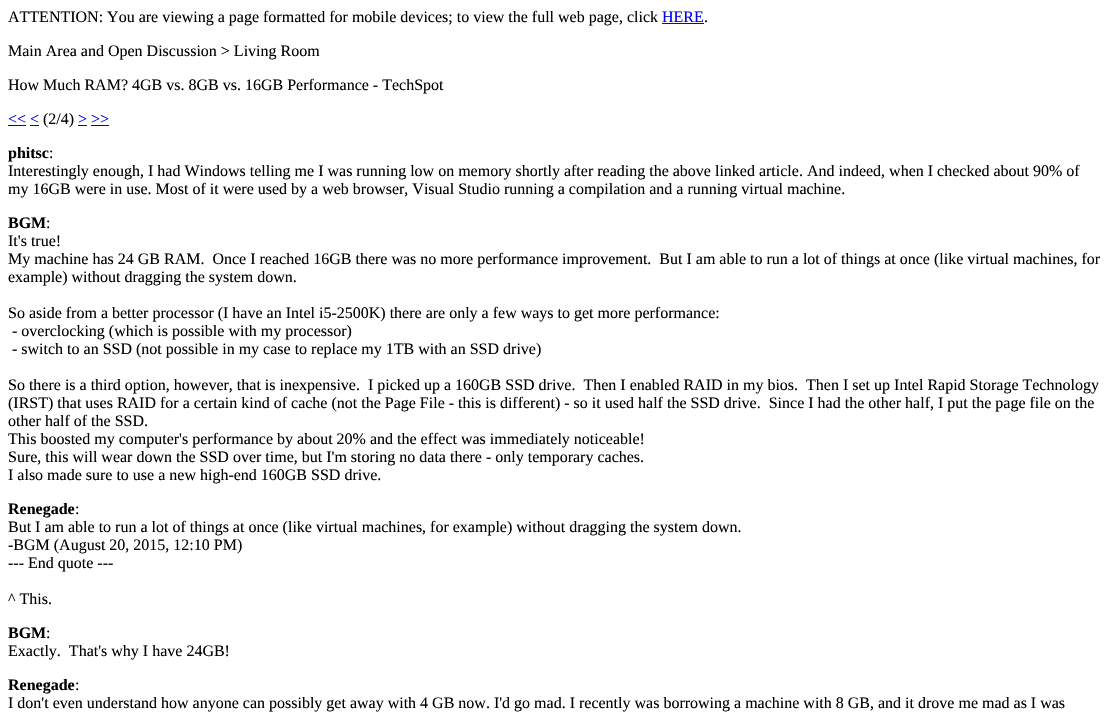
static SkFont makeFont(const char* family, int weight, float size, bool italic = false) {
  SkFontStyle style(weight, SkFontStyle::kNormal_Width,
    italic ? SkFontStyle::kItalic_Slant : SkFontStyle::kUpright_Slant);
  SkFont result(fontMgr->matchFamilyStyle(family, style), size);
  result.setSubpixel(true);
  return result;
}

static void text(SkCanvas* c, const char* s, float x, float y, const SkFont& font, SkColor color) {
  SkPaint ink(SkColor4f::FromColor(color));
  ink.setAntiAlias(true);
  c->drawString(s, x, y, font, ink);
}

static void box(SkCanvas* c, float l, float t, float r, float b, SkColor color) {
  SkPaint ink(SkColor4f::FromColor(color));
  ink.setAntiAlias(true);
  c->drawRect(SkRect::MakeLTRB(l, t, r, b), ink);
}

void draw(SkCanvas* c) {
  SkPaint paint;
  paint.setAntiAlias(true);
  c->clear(0xffffffff);
  SkFont face1 = makeFont("Liberation Serif", 400, 16);
  text(c, "ATTENTION: You are viewing a page formatted for mobile devices; to view the full web page, click", 8, 22, face1, 0xff000000);
  text(c, "HERE", 662, 22, face1, 0xff0000ee);
  box(c, 662, 23, 704, 24, 0xff0000ee);
  text(c, ".", 704, 22, face1, 0xff000000);
  text(c, "Main Area and Open Discussion > Living Room", 8, 56, face1, 0xff000000);
  text(c, "How Much RAM? 4GB vs. 8GB vs. 16GB Performance - TechSpot", 8, 90, face1, 0xff000000);
  text(c, "<< <", 8, 124, face1, 0xff0000ee);
  box(c, 8, 125, 26, 126, 0xff0000ee);
  text(c, "(2/4)", 43, 124, face1, 0xff000000);
  text(c, "> >>", 78, 124, face1, 0xff0000ee);
  box(c, 78, 125, 87, 126, 0xff0000ee);
  box(c, 30, 125, 39, 126, 0xff0000ee);
  box(c, 91, 125, 109, 126, 0xff0000ee);
  SkFont face2 = makeFont("Liberation Serif", 700, 16);
  text(c, "phitsc", 8, 158, face2, 0xff000000);
  text(c, ":", 49, 158, face1, 0xff000000);
  text(c, "Interestingly enough, I had Windows telling me I was running low on memory shortly after reading the above linked article. And indeed, when I checked about 90% of", 8, 176, face1, 0xff000000);
  text(c, "my 16GB were in use. Most of it were used by a web browser, Visual Studio running a compilation and a running virtual machine.", 8, 194, face1, 0xff000000);
  text(c, "BGM", 8, 228, face2, 0xff000000);
  text(c, ":", 46, 228, face1, 0xff000000);
  text(c, "It's true!", 8, 246, face1, 0xff000000);
  text(c, "My machine has 24 GB RAM.  Once I reached 16GB there was no more performance improvement.  But I am able to run a lot of things at once (like virtual machines, for", 8, 264, face1, 0xff000000);
  text(c, "example) without dragging the system down.", 8, 282, face1, 0xff000000);
  text(c, "So aside from a better processor (I have an Intel i5-2500K) there are only a few ways to get more performance:", 8, 318, face1, 0xff000000);
  text(c, "- overclocking (which is possible with my processor)", 12, 336, face1, 0xff000000);
  text(c, "- switch to an SSD (not possible in my case to replace my 1TB with an SSD drive)", 12, 354, face1, 0xff000000);
  text(c, "So there is a third option, however, that is inexpensive.  I picked up a 160GB SSD drive.  Then I enabled RAID in my bios.  Then I set up Intel Rapid Storage Technology", 8, 390, face1, 0xff000000);
  text(c, "(IRST) that uses RAID for a certain kind of cache (not the Page File - this is different) - so it used half the SSD drive.  Since I had the other half, I put the page file on the", 8, 408, face1, 0xff000000);
  text(c, "other half of the SSD.", 8, 426, face1, 0xff000000);
  text(c, "This boosted my computer's performance by about 20% and the effect was immediately noticeable!", 8, 444, face1, 0xff000000);
  text(c, "Sure, this will wear down the SSD over time, but I'm storing no data there - only temporary caches.", 8, 462, face1, 0xff000000);
  text(c, "I also made sure to use a new high-end 160GB SSD drive.", 8, 480, face1, 0xff000000);
  text(c, "Renegade", 8, 514, face2, 0xff000000);
  text(c, ":", 75, 514, face1, 0xff000000);
  text(c, "But I am able to run a lot of things at once (like virtual machines, for example) without dragging the system down.", 8, 532, face1, 0xff000000);
  text(c, "-BGM (August 20, 2015, 12:10 PM)", 8, 550, face1, 0xff000000);
  text(c, "--- End quote ---", 8, 568, face1, 0xff000000);
  text(c, "^ This.", 8, 604, face1, 0xff000000);
  text(c, "BGM", 8, 638, face2, 0xff000000);
  text(c, ":", 46, 638, face1, 0xff000000);
  text(c, "Exactly.  That's why I have 24GB!", 8, 656, face1, 0xff000000);
  text(c, "Renegade", 8, 690, face2, 0xff000000);
  text(c, ":", 75, 690, face1, 0xff000000);
  text(c, "I don't even understand how anyone can possibly get away with 4 GB now. I'd go mad. I recently was borrowing a machine with 8 GB, and it drove me mad as I was", 8, 708, face1, 0xff000000);
}
